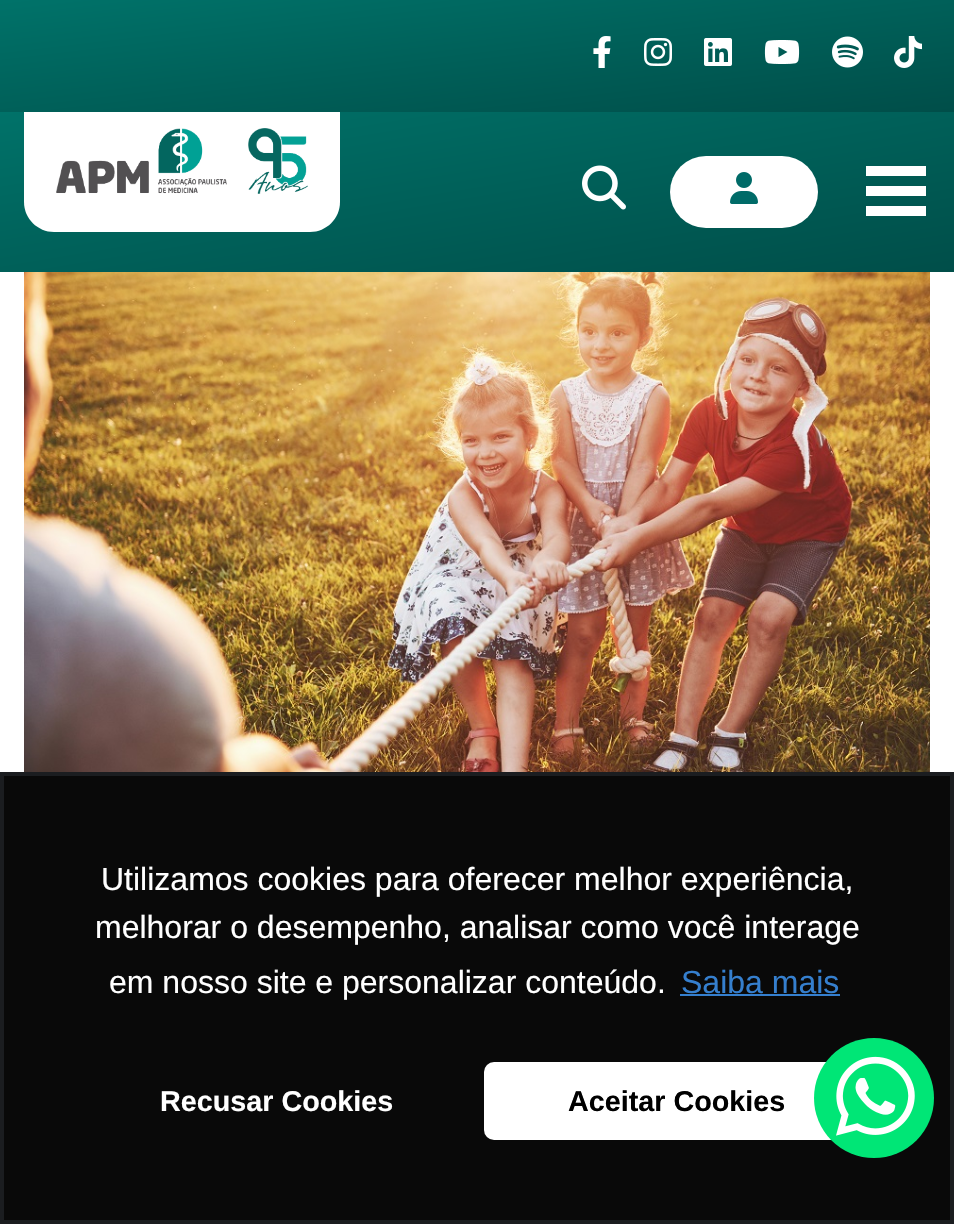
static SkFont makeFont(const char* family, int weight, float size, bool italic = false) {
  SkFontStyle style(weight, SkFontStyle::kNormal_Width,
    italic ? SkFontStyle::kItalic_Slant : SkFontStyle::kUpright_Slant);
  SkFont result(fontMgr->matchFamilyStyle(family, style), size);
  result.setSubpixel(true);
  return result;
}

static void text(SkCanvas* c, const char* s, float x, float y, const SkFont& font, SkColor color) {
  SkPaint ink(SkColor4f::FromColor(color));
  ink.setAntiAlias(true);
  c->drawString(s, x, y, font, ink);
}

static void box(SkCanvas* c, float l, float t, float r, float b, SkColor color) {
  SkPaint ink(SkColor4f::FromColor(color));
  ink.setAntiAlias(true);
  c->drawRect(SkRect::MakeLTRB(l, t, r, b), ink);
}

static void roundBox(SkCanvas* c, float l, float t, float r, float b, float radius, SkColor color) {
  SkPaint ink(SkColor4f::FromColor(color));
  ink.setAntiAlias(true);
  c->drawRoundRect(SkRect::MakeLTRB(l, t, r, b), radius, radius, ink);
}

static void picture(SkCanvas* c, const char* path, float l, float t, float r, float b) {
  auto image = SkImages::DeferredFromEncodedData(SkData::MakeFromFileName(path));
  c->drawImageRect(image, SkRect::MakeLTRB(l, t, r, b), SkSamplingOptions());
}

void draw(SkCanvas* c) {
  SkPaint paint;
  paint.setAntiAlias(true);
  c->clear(0xffffffff);
  {
    const SkColor colors[] = {0xff007269, 0xff004e49};
    const float stops[] = {0, 1};
    const SkPoint ends[] = {{464, -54}, {490, 166}};
    paint.setShader(SkGradientShader::MakeLinear(ends, colors, stops, 2, SkTileMode::kClamp));
    paint.setAlpha(255);
  }
  c->drawRect(SkRect::MakeLTRB(0, 0, 954, 112), paint);
  picture(c, "img_01.png", 593, 36, 611, 68);
  picture(c, "img_02.png", 644, 38, 672, 66);
  picture(c, "img_03.png", 704, 38, 732, 66);
  picture(c, "img_04.png", 764, 40, 800, 64);
  picture(c, "img_05.png", 832, 36, 863, 68);
  picture(c, "img_06.png", 894, 36, 922, 68);
  {
    const SkColor colors[] = {0xff007269, 0xff004e49};
    const float stops[] = {0, 1};
    const SkPoint ends[] = {{451, 36}, {503, 348}};
    paint.setShader(SkGradientShader::MakeLinear(ends, colors, stops, 2, SkTileMode::kClamp));
    paint.setAlpha(255);
  }
  c->drawRect(SkRect::MakeLTRB(0, 112, 954, 272), paint);
  paint.setShader(nullptr);
  paint.setColor(0xffffffff);
  c->drawPath(SkPathBuilder().moveTo(24, 112).lineTo(340, 112).lineTo(340, 202).cubicTo(340, 218.5f, 326.5f, 232, 310, 232).lineTo(54, 232).cubicTo(37.5f, 232, 24, 218.5f, 24, 202).close().detach(), paint);
  picture(c, "img_07.png", 56, 128, 308, 194);
  picture(c, "img_08.png", 582, 165, 626, 210);
  roundBox(c, 670, 156, 818, 228, 36, 0xffffffff);
  picture(c, "img_09.png", 730, 172, 758, 204);
  box(c, 866, 166, 926, 176, 0xffffffff);
  box(c, 866, 186, 926, 196, 0xffffffff);
  box(c, 866, 206, 926, 216, 0xffffffff);
  picture(c, "img_10.png", 24, 272, 930, 772);
  paint.setColor(0xff090909);
  c->drawRect(SkRect::MakeLTRB(2, 774, 952, 1222), paint);
  paint.setStyle(SkPaint::kStroke_Style);
  paint.setStrokeWidth(4);
  paint.setColor(0xff1b1d20);
  c->drawRect(SkRect::MakeLTRB(2, 774, 952, 1222), paint);
  SkFont face1 = makeFont("Liberation Sans", 400, 32);
  text(c, "Utilizamos cookies para oferecer melhor experiência,", 101, 890, face1, 0xffffffff);
  text(c, "melhorar o desempenho, analisar como você interage", 95, 938, face1, 0xffffffff);
  text(c, "em nosso site e personalizar conteúdo.", 109, 993, face1, 0xffffffff);
  text(c, "Saiba mais", 681, 993, face1, 0xff357fce);
  box(c, 680, 994, 840, 996, 0xff357fce);
  SkFont face2 = makeFont("Liberation Sans", 700, 28.75f);
  text(c, "Recusar Cookies", 160, 1111, face2, 0xffffffff);
  roundBox(c, 484, 1062, 870, 1140, 10, 0xffffffff);
  text(c, "Aceitar Cookies", 568, 1111, face2, 0xff000000);
  paint.setStyle(SkPaint::kFill_Style);
  paint.setColor(0xff00e676);
  c->drawCircle(874, 1098, 60, paint);
  picture(c, "img_11.png", 836, 1056, 915, 1136);
}
